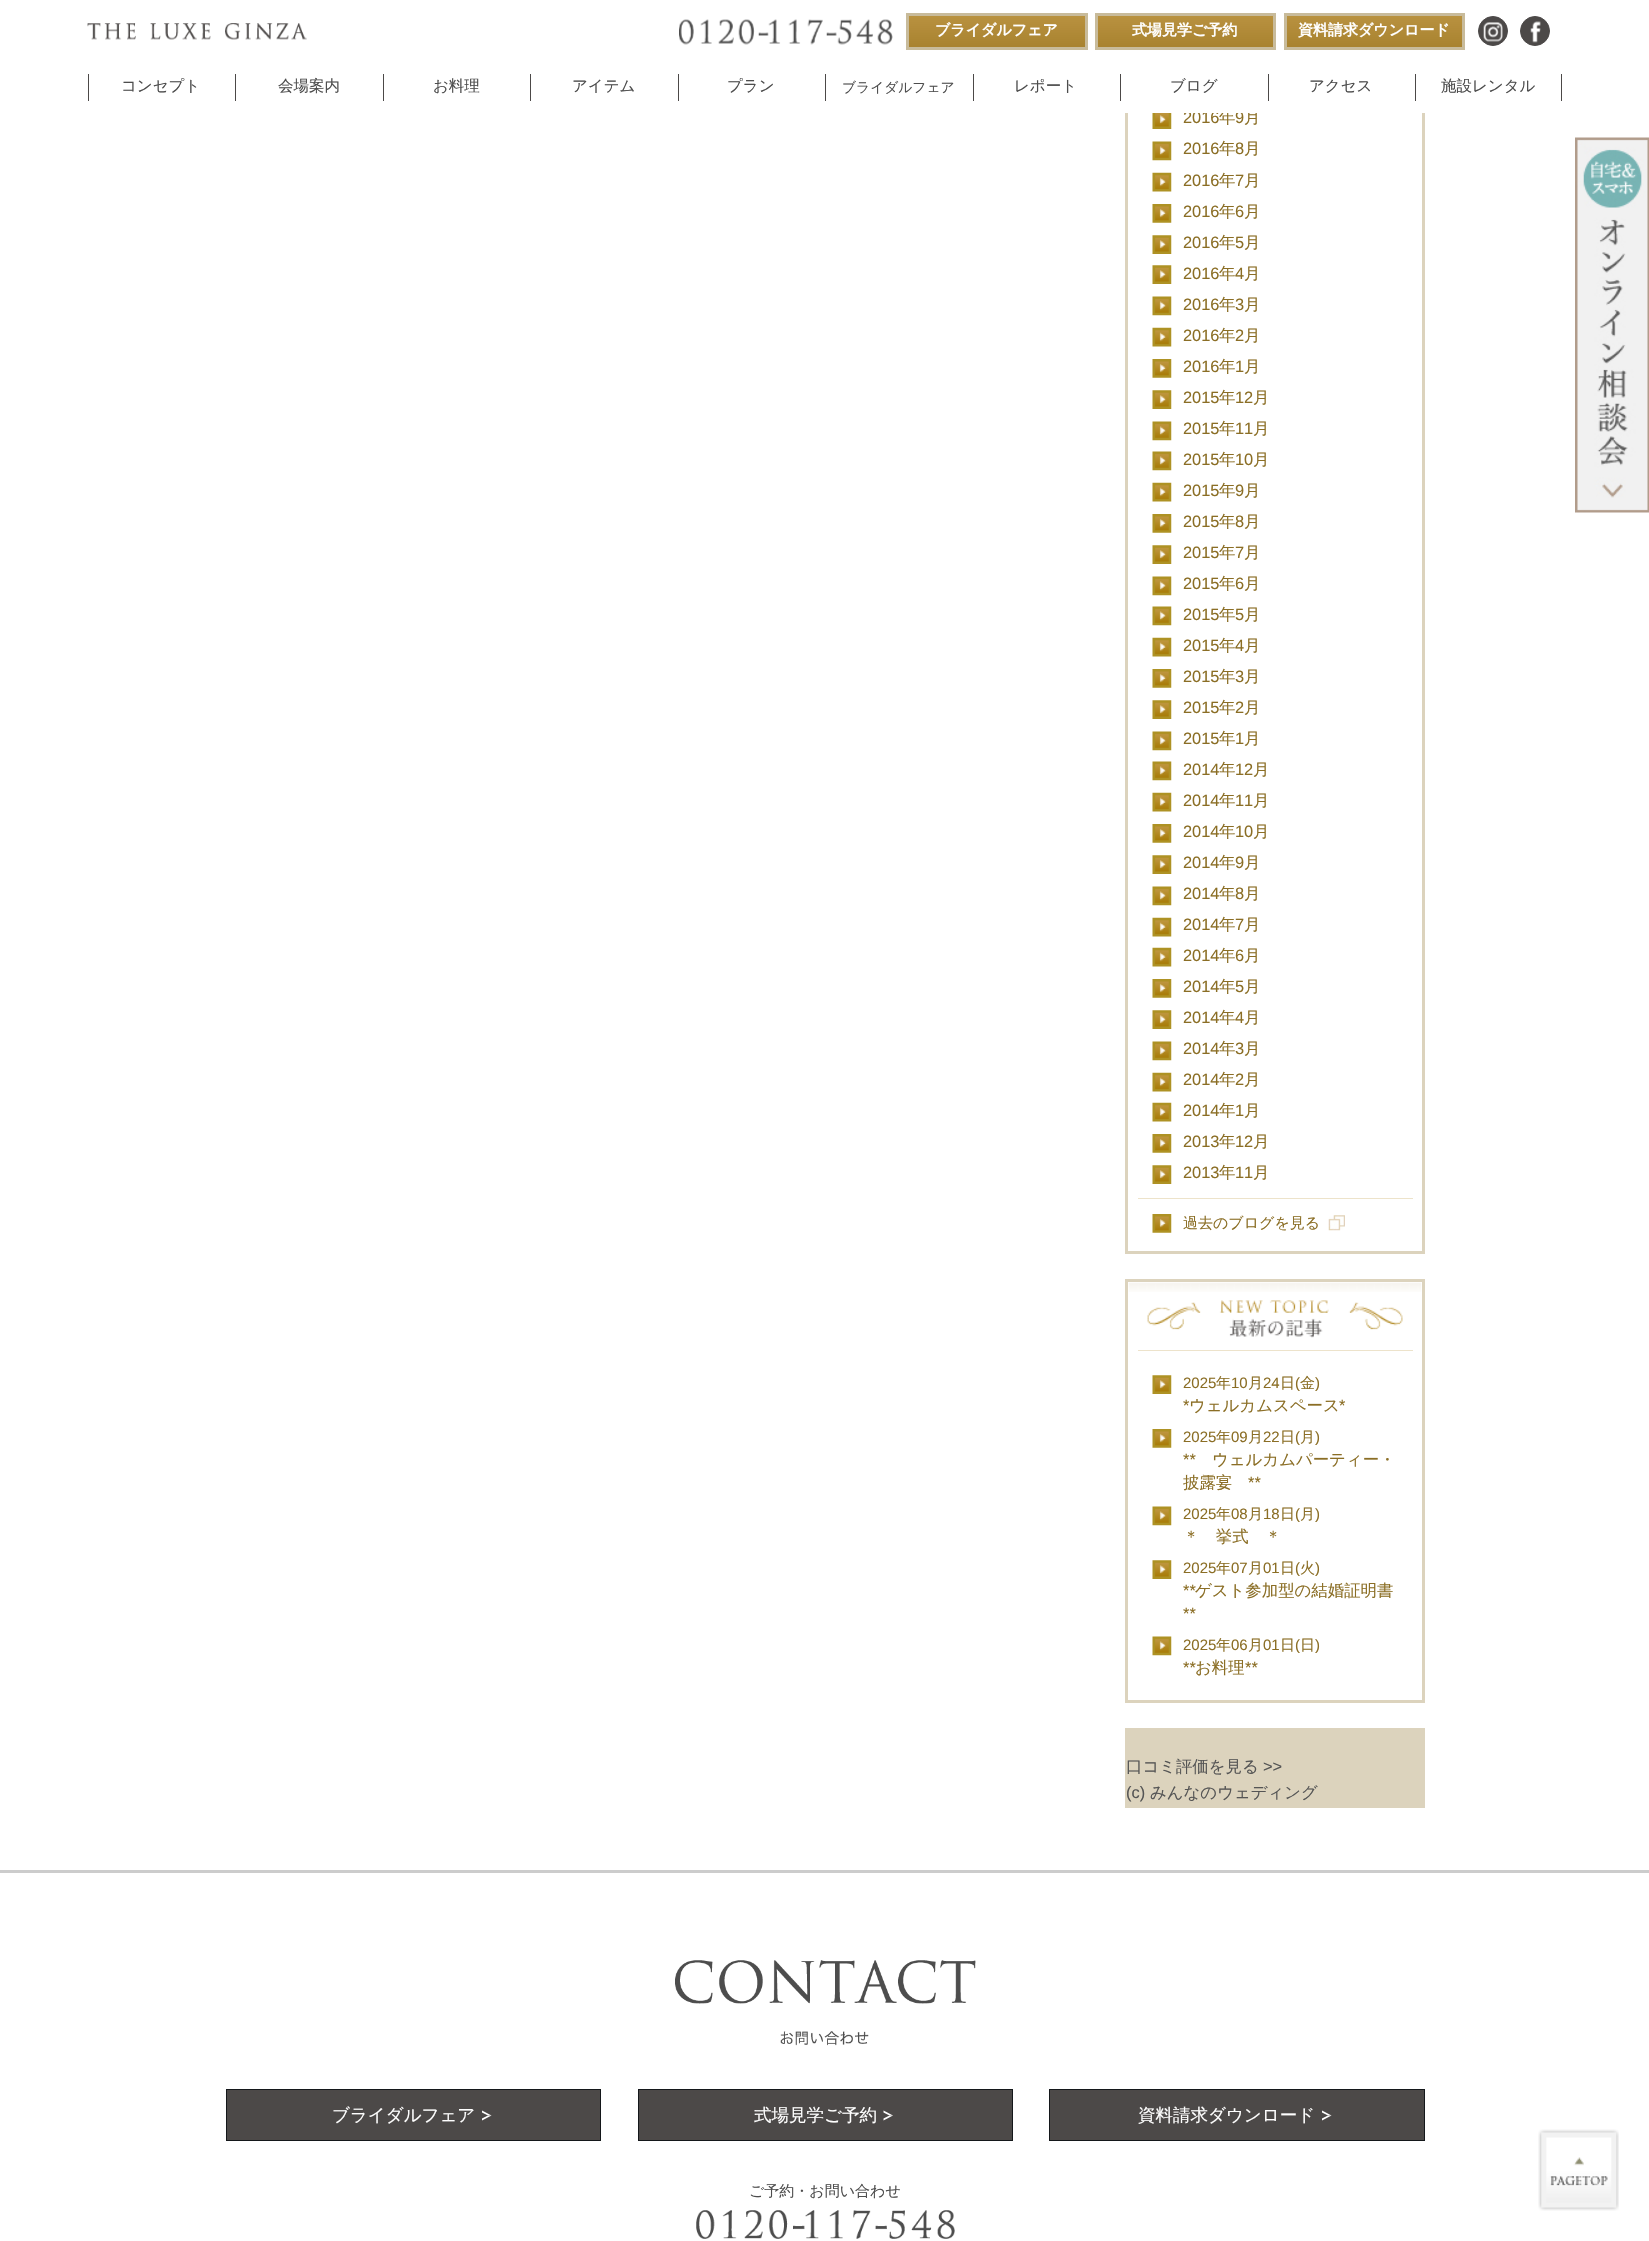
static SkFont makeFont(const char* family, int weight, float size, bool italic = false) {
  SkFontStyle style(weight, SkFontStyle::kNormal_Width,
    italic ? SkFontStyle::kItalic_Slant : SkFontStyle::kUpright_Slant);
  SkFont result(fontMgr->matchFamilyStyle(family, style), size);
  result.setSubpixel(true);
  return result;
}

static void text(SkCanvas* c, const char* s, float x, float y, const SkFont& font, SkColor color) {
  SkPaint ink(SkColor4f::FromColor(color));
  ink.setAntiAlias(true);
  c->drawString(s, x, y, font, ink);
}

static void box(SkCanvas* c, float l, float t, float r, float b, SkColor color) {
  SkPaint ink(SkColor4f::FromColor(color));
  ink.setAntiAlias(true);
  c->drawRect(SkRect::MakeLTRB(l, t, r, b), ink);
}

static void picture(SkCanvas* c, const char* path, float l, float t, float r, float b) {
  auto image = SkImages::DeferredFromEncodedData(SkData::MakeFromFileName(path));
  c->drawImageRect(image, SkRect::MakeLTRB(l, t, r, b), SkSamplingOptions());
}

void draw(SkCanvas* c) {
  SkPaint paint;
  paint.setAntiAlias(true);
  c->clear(0xffffffff);
  paint.setStyle(SkPaint::kStroke_Style);
  paint.setStrokeWidth(3);
  paint.setColor(0xffdcd3bd);
  c->drawRect(SkRect::MakeLTRB(1126.5f, -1.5f, 1423.5f, 1252.5f), paint);
  SkFont face1 = makeFont("Liberation Sans", 400, 16.4f);
  text(c, "2016", 1183, 123, face1, 0xff8b6e25);
  SkFont face2 = makeFont("WenQuanYi Zen Hei", 500, 16.4f);
  text(c, "年", 1219, 123, face2, 0xff8b6e25);
  text(c, "9", 1235, 123, face1, 0xff8b6e25);
  text(c, "月", 1244, 123, face2, 0xff8b6e25);
  box(c, 1125, 0, 1425, 113, 0xffffffff);
  picture(c, "img_01.png", 87, 23, 307, 40);
  picture(c, "img_02.png", 679, 19, 893, 45);
  paint.setStyle(SkPaint::kFill_Style);
  {
    const SkColor colors[] = {0xffb99240, 0xffa8822f};
    const float stops[] = {0, 1};
    const SkPoint ends[] = {{997, 15}, {997, 48}};
    paint.setShader(SkGradientShader::MakeLinear(ends, colors, stops, 2, SkTileMode::kClamp));
    paint.setAlpha(255);
  }
  c->drawRect(SkRect::MakeLTRB(909, 16, 1085, 47), paint);
  paint.setStyle(SkPaint::kStroke_Style);
  paint.setShader(nullptr);
  paint.setColor(0xffc8bb9b);
  c->drawRect(SkRect::MakeLTRB(907.5f, 14.5f, 1086.5f, 48.5f), paint);
  SkFont face3 = makeFont("WenQuanYi Zen Hei", 700, 15);
  text(c, "ブライダルフェア", 935, 35, face3, 0xffffffff);
  paint.setStyle(SkPaint::kFill_Style);
  {
    const SkColor colors[] = {0xffb99240, 0xffa8822f};
    const float stops[] = {0, 1};
    const SkPoint ends[] = {{1186, 15}, {1186, 48}};
    paint.setShader(SkGradientShader::MakeLinear(ends, colors, stops, 2, SkTileMode::kClamp));
    paint.setAlpha(255);
  }
  c->drawRect(SkRect::MakeLTRB(1098, 16, 1273, 47), paint);
  paint.setStyle(SkPaint::kStroke_Style);
  paint.setShader(nullptr);
  paint.setColor(0xffc8bb9b);
  c->drawRect(SkRect::MakeLTRB(1096.5f, 14.5f, 1274.5f, 48.5f), paint);
  text(c, "式場見学ご予約", 1132, 35, face3, 0xffffffff);
  paint.setStyle(SkPaint::kFill_Style);
  {
    const SkColor colors[] = {0xffb99240, 0xffa8822f};
    const float stops[] = {0, 1};
    const SkPoint ends[] = {{1374, 15}, {1374, 48}};
    paint.setShader(SkGradientShader::MakeLinear(ends, colors, stops, 2, SkTileMode::kClamp));
    paint.setAlpha(255);
  }
  c->drawRect(SkRect::MakeLTRB(1287, 16, 1462, 47), paint);
  paint.setStyle(SkPaint::kStroke_Style);
  paint.setShader(nullptr);
  paint.setColor(0xffc8bb9b);
  c->drawRect(SkRect::MakeLTRB(1285.5f, 14.5f, 1463.5f, 48.5f), paint);
  text(c, "資料請求ダウンロード", 1298, 35, face3, 0xffffffff);
  paint.setStyle(SkPaint::kFill_Style);
  paint.setColor(0xff4c4948);
  c->drawCircle(1493, 31, 14.5f, paint);
  paint.setStyle(SkPaint::kStroke_Style);
  paint.setStrokeWidth(1);
  c->drawCircle(1493, 31, 14.5f, paint);
  picture(c, "img_03.png", 1483, 22, 1503, 42);
  paint.setStyle(SkPaint::kFill_Style);
  c->drawCircle(1535, 31, 14.5f, paint);
  paint.setStyle(SkPaint::kStroke_Style);
  c->drawCircle(1535, 31, 14.5f, paint);
  picture(c, "img_04.png", 1530, 21, 1541, 43);
  box(c, 88, 74, 89, 101, 0xff4c4948);
  SkFont face4 = makeFont("WenQuanYi Zen Hei", 500, 15.5f);
  text(c, "コンセプト", 121, 91, face4, 0xff4d4d4d);
  box(c, 235, 74, 236, 101, 0xff4c4948);
  text(c, "会場案内", 278, 91, face4, 0xff4d4d4d);
  box(c, 383, 74, 384, 101, 0xff4c4948);
  text(c, "お料理", 433, 91, face4, 0xff4d4d4d);
  box(c, 530, 74, 531, 101, 0xff4c4948);
  text(c, "アイテム", 572, 91, face4, 0xff4d4d4d);
  box(c, 678, 74, 679, 101, 0xff4c4948);
  text(c, "プラン", 727, 91, face4, 0xff4d4d4d);
  box(c, 825, 74, 826, 101, 0xff4c4948);
  SkFont face5 = makeFont("WenQuanYi Zen Hei", 500, 13.75f);
  text(c, "ブライダルフェア", 842, 92, face5, 0xff4d4d4d);
  box(c, 973, 74, 974, 101, 0xff4c4948);
  text(c, "レポート", 1014, 91, face4, 0xff4d4d4d);
  box(c, 1120, 74, 1121, 101, 0xff4c4948);
  text(c, "ブログ", 1170, 91, face4, 0xff4d4d4d);
  box(c, 1268, 74, 1269, 101, 0xff4c4948);
  text(c, "アクセス", 1309, 91, face4, 0xff4d4d4d);
  box(c, 1415, 74, 1416, 101, 0xff4c4948);
  text(c, "施設レンタル", 1441, 91, face4, 0xff4d4d4d);
  box(c, 1561, 74, 1562, 101, 0xff4c4948);
  picture(c, "img_05.png", 1575, 137, 1649, 513);
  picture(c, "img_06.png", 1152, 113, 1172, 129);
  picture(c, "img_07.png", 1152, 141, 1172, 161);
  text(c, "2016", 1183, 154, face1, 0xff8b6e25);
  text(c, "年", 1219, 154, face2, 0xff8b6e25);
  text(c, "8", 1235, 154, face1, 0xff8b6e25);
  text(c, "月", 1244, 154, face2, 0xff8b6e25);
  picture(c, "img_08.png", 1152, 172, 1172, 192);
  text(c, "2016", 1183, 186, face1, 0xff8b6e25);
  text(c, "年", 1219, 186, face2, 0xff8b6e25);
  text(c, "7", 1235, 186, face1, 0xff8b6e25);
  text(c, "月", 1244, 186, face2, 0xff8b6e25);
  picture(c, "img_09.png", 1152, 204, 1172, 223);
  text(c, "2016", 1183, 217, face1, 0xff8b6e25);
  text(c, "年", 1219, 217, face2, 0xff8b6e25);
  text(c, "6", 1235, 217, face1, 0xff8b6e25);
  text(c, "月", 1244, 217, face2, 0xff8b6e25);
  picture(c, "img_10.png", 1152, 235, 1172, 254);
  text(c, "2016", 1183, 248, face1, 0xff8b6e25);
  text(c, "年", 1219, 248, face2, 0xff8b6e25);
  text(c, "5", 1235, 248, face1, 0xff8b6e25);
  text(c, "月", 1244, 248, face2, 0xff8b6e25);
  picture(c, "img_10.png", 1152, 265, 1172, 284);
  text(c, "2016", 1183, 279, face1, 0xff8b6e25);
  text(c, "年", 1219, 279, face2, 0xff8b6e25);
  text(c, "4", 1235, 279, face1, 0xff8b6e25);
  text(c, "月", 1244, 279, face2, 0xff8b6e25);
  picture(c, "img_07.png", 1152, 296, 1172, 316);
  text(c, "2016", 1183, 310, face1, 0xff8b6e25);
  text(c, "年", 1219, 310, face2, 0xff8b6e25);
  text(c, "3", 1235, 310, face1, 0xff8b6e25);
  text(c, "月", 1244, 310, face2, 0xff8b6e25);
  picture(c, "img_08.png", 1152, 327, 1172, 347);
  text(c, "2016", 1183, 341, face1, 0xff8b6e25);
  text(c, "年", 1219, 341, face2, 0xff8b6e25);
  text(c, "2", 1235, 341, face1, 0xff8b6e25);
  text(c, "月", 1244, 341, face2, 0xff8b6e25);
  picture(c, "img_09.png", 1152, 359, 1172, 378);
  text(c, "2016", 1183, 372, face1, 0xff8b6e25);
  text(c, "年", 1219, 372, face2, 0xff8b6e25);
  text(c, "1", 1235, 372, face1, 0xff8b6e25);
  text(c, "月", 1244, 372, face2, 0xff8b6e25);
  picture(c, "img_10.png", 1152, 390, 1172, 409);
  text(c, "2015", 1183, 403, face1, 0xff8b6e25);
  text(c, "年", 1219, 403, face2, 0xff8b6e25);
  text(c, "12", 1235, 403, face1, 0xff8b6e25);
  text(c, "月", 1253, 403, face2, 0xff8b6e25);
  picture(c, "img_07.png", 1152, 421, 1172, 441);
  text(c, "2015", 1183, 434, face1, 0xff8b6e25);
  text(c, "年", 1219, 434, face2, 0xff8b6e25);
  text(c, "11", 1235, 434, face1, 0xff8b6e25);
  text(c, "月", 1253, 434, face2, 0xff8b6e25);
  picture(c, "img_07.png", 1152, 451, 1172, 471);
  text(c, "2015", 1183, 465, face1, 0xff8b6e25);
  text(c, "年", 1219, 465, face2, 0xff8b6e25);
  text(c, "10", 1235, 465, face1, 0xff8b6e25);
  text(c, "月", 1253, 465, face2, 0xff8b6e25);
  picture(c, "img_08.png", 1152, 482, 1172, 502);
  text(c, "2015", 1183, 496, face1, 0xff8b6e25);
  text(c, "年", 1219, 496, face2, 0xff8b6e25);
  text(c, "9", 1235, 496, face1, 0xff8b6e25);
  text(c, "月", 1244, 496, face2, 0xff8b6e25);
  picture(c, "img_09.png", 1152, 514, 1172, 533);
  text(c, "2015", 1183, 527, face1, 0xff8b6e25);
  text(c, "年", 1219, 527, face2, 0xff8b6e25);
  text(c, "8", 1235, 527, face1, 0xff8b6e25);
  text(c, "月", 1244, 527, face2, 0xff8b6e25);
  picture(c, "img_10.png", 1152, 545, 1172, 564);
  text(c, "2015", 1183, 558, face1, 0xff8b6e25);
  text(c, "年", 1219, 558, face2, 0xff8b6e25);
  text(c, "7", 1235, 558, face1, 0xff8b6e25);
  text(c, "月", 1244, 558, face2, 0xff8b6e25);
  picture(c, "img_07.png", 1152, 576, 1172, 596);
  text(c, "2015", 1183, 589, face1, 0xff8b6e25);
  text(c, "年", 1219, 589, face2, 0xff8b6e25);
  text(c, "6", 1235, 589, face1, 0xff8b6e25);
  text(c, "月", 1244, 589, face2, 0xff8b6e25);
  picture(c, "img_07.png", 1152, 606, 1172, 626);
  text(c, "2015", 1183, 620, face1, 0xff8b6e25);
  text(c, "年", 1219, 620, face2, 0xff8b6e25);
  text(c, "5", 1235, 620, face1, 0xff8b6e25);
  text(c, "月", 1244, 620, face2, 0xff8b6e25);
  picture(c, "img_08.png", 1152, 637, 1172, 657);
  text(c, "2015", 1183, 651, face1, 0xff8b6e25);
  text(c, "年", 1219, 651, face2, 0xff8b6e25);
  text(c, "4", 1235, 651, face1, 0xff8b6e25);
  text(c, "月", 1244, 651, face2, 0xff8b6e25);
  picture(c, "img_09.png", 1152, 669, 1172, 688);
  text(c, "2015", 1183, 682, face1, 0xff8b6e25);
  text(c, "年", 1219, 682, face2, 0xff8b6e25);
  text(c, "3", 1235, 682, face1, 0xff8b6e25);
  text(c, "月", 1244, 682, face2, 0xff8b6e25);
  picture(c, "img_10.png", 1152, 700, 1172, 719);
  text(c, "2015", 1183, 713, face1, 0xff8b6e25);
  text(c, "年", 1219, 713, face2, 0xff8b6e25);
  text(c, "2", 1235, 713, face1, 0xff8b6e25);
  text(c, "月", 1244, 713, face2, 0xff8b6e25);
  picture(c, "img_07.png", 1152, 731, 1172, 751);
  text(c, "2015", 1183, 744, face1, 0xff8b6e25);
  text(c, "年", 1219, 744, face2, 0xff8b6e25);
  text(c, "1", 1235, 744, face1, 0xff8b6e25);
  text(c, "月", 1244, 744, face2, 0xff8b6e25);
  picture(c, "img_07.png", 1152, 761, 1172, 781);
  text(c, "2014", 1183, 775, face1, 0xff8b6e25);
  text(c, "年", 1219, 775, face2, 0xff8b6e25);
  text(c, "12", 1235, 775, face1, 0xff8b6e25);
  text(c, "月", 1253, 775, face2, 0xff8b6e25);
  picture(c, "img_08.png", 1152, 792, 1172, 812);
  text(c, "2014", 1183, 806, face1, 0xff8b6e25);
  text(c, "年", 1219, 806, face2, 0xff8b6e25);
  text(c, "11", 1235, 806, face1, 0xff8b6e25);
  text(c, "月", 1253, 806, face2, 0xff8b6e25);
  picture(c, "img_09.png", 1152, 824, 1172, 843);
  text(c, "2014", 1183, 837, face1, 0xff8b6e25);
  text(c, "年", 1219, 837, face2, 0xff8b6e25);
  text(c, "10", 1235, 837, face1, 0xff8b6e25);
  text(c, "月", 1253, 837, face2, 0xff8b6e25);
  picture(c, "img_10.png", 1152, 855, 1172, 874);
  text(c, "2014", 1183, 868, face1, 0xff8b6e25);
  text(c, "年", 1219, 868, face2, 0xff8b6e25);
  text(c, "9", 1235, 868, face1, 0xff8b6e25);
  text(c, "月", 1244, 868, face2, 0xff8b6e25);
  picture(c, "img_07.png", 1152, 886, 1172, 906);
  text(c, "2014", 1183, 899, face1, 0xff8b6e25);
  text(c, "年", 1219, 899, face2, 0xff8b6e25);
  text(c, "8", 1235, 899, face1, 0xff8b6e25);
  text(c, "月", 1244, 899, face2, 0xff8b6e25);
  picture(c, "img_08.png", 1152, 917, 1172, 937);
  text(c, "2014", 1183, 930, face1, 0xff8b6e25);
  text(c, "年", 1219, 930, face2, 0xff8b6e25);
  text(c, "7", 1235, 930, face1, 0xff8b6e25);
  text(c, "月", 1244, 930, face2, 0xff8b6e25);
  picture(c, "img_11.png", 1152, 947, 1172, 967);
  text(c, "2014", 1183, 961, face1, 0xff8b6e25);
  text(c, "年", 1219, 961, face2, 0xff8b6e25);
  text(c, "6", 1235, 961, face1, 0xff8b6e25);
  text(c, "月", 1244, 961, face2, 0xff8b6e25);
  picture(c, "img_09.png", 1152, 979, 1172, 998);
  text(c, "2014", 1183, 992, face1, 0xff8b6e25);
  text(c, "年", 1219, 992, face2, 0xff8b6e25);
  text(c, "5", 1235, 992, face1, 0xff8b6e25);
  text(c, "月", 1244, 992, face2, 0xff8b6e25);
  picture(c, "img_10.png", 1152, 1010, 1172, 1029);
  text(c, "2014", 1183, 1023, face1, 0xff8b6e25);
  text(c, "年", 1219, 1023, face2, 0xff8b6e25);
  text(c, "4", 1235, 1023, face1, 0xff8b6e25);
  text(c, "月", 1244, 1023, face2, 0xff8b6e25);
  picture(c, "img_07.png", 1152, 1041, 1172, 1061);
  text(c, "2014", 1183, 1054, face1, 0xff8b6e25);
  text(c, "年", 1219, 1054, face2, 0xff8b6e25);
  text(c, "3", 1235, 1054, face1, 0xff8b6e25);
  text(c, "月", 1244, 1054, face2, 0xff8b6e25);
  picture(c, "img_08.png", 1152, 1072, 1172, 1092);
  text(c, "2014", 1183, 1085, face1, 0xff8b6e25);
  text(c, "年", 1219, 1085, face2, 0xff8b6e25);
  text(c, "2", 1235, 1085, face1, 0xff8b6e25);
  text(c, "月", 1244, 1085, face2, 0xff8b6e25);
  picture(c, "img_08.png", 1152, 1102, 1172, 1122);
  text(c, "2014", 1183, 1116, face1, 0xff8b6e25);
  text(c, "年", 1219, 1116, face2, 0xff8b6e25);
  text(c, "1", 1235, 1116, face1, 0xff8b6e25);
  text(c, "月", 1244, 1116, face2, 0xff8b6e25);
  picture(c, "img_09.png", 1152, 1134, 1172, 1153);
  text(c, "2013", 1183, 1147, face1, 0xff8b6e25);
  text(c, "年", 1219, 1147, face2, 0xff8b6e25);
  text(c, "12", 1235, 1147, face1, 0xff8b6e25);
  text(c, "月", 1253, 1147, face2, 0xff8b6e25);
  picture(c, "img_10.png", 1152, 1165, 1172, 1184);
  text(c, "2013", 1183, 1178, face1, 0xff8b6e25);
  text(c, "年", 1219, 1178, face2, 0xff8b6e25);
  text(c, "11", 1235, 1178, face1, 0xff8b6e25);
  text(c, "月", 1253, 1178, face2, 0xff8b6e25);
  box(c, 1138, 1198, 1413, 1199, 0xffede3ca);
  picture(c, "img_09.png", 1152, 1214, 1172, 1233);
  SkFont face6 = makeFont("WenQuanYi Zen Hei", 500, 15);
  text(c, "過去のブログを見る", 1183, 1228, face6, 0xff8b6e25);
  picture(c, "img_12.png", 1328, 1215, 1345, 1231);
  paint.setStrokeWidth(3);
  paint.setColor(0xffdcd3bd);
  c->drawRect(SkRect::MakeLTRB(1126.5f, 1280.5f, 1423.5f, 1701.5f), paint);
  picture(c, "img_13.png", 1128, 1282, 1422, 1292);
  picture(c, "img_14.png", 1147, 1300, 1403, 1338);
  box(c, 1138, 1350, 1413, 1351, 0xffede3cb);
  picture(c, "img_10.png", 1152, 1375, 1172, 1394);
  SkFont face7 = makeFont("Liberation Sans", 400, 15);
  text(c, "2025", 1183, 1388, face7, 0xff8b6e25);
  text(c, "年", 1216, 1388, face6, 0xff8b6e25);
  text(c, "10", 1231, 1388, face7, 0xff8b6e25);
  text(c, "月", 1248, 1388, face6, 0xff8b6e25);
  text(c, "24", 1263, 1388, face7, 0xff8b6e25);
  text(c, "日", 1280, 1388, face6, 0xff8b6e25);
  text(c, "(", 1295, 1388, face7, 0xff8b6e25);
  text(c, "金", 1300, 1388, face6, 0xff8b6e25);
  text(c, ")", 1315, 1388, face7, 0xff8b6e25);
  text(c, "*", 1183, 1411, face1, 0xff8b6e25);
  text(c, "ウェルカムスペース", 1189, 1411, face2, 0xff8b6e25);
  text(c, "*", 1339, 1411, face1, 0xff8b6e25);
  picture(c, "img_09.png", 1152, 1429, 1172, 1448);
  text(c, "2025", 1183, 1442, face7, 0xff8b6e25);
  text(c, "年", 1216, 1442, face6, 0xff8b6e25);
  text(c, "09", 1231, 1442, face7, 0xff8b6e25);
  text(c, "月", 1248, 1442, face6, 0xff8b6e25);
  text(c, "22", 1263, 1442, face7, 0xff8b6e25);
  text(c, "日", 1280, 1442, face6, 0xff8b6e25);
  text(c, "(", 1295, 1442, face7, 0xff8b6e25);
  text(c, "月", 1300, 1442, face6, 0xff8b6e25);
  text(c, ")", 1315, 1442, face7, 0xff8b6e25);
  text(c, "**", 1183, 1465, face1, 0xff8b6e25);
  text(c, "ウェルカムパーティー・", 1212, 1465, face2, 0xff8b6e25);
  text(c, "披露宴", 1183, 1488, face2, 0xff8b6e25);
  text(c, "**", 1248, 1488, face1, 0xff8b6e25);
  picture(c, "img_07.png", 1152, 1506, 1172, 1526);
  text(c, "2025", 1183, 1519, face7, 0xff8b6e25);
  text(c, "年", 1216, 1519, face6, 0xff8b6e25);
  text(c, "08", 1231, 1519, face7, 0xff8b6e25);
  text(c, "月", 1248, 1519, face6, 0xff8b6e25);
  text(c, "18", 1263, 1519, face7, 0xff8b6e25);
  text(c, "日", 1280, 1519, face6, 0xff8b6e25);
  text(c, "(", 1295, 1519, face7, 0xff8b6e25);
  text(c, "月", 1300, 1519, face6, 0xff8b6e25);
  text(c, ")", 1315, 1519, face7, 0xff8b6e25);
  text(c, "＊　挙式　＊", 1183, 1542, face2, 0xff8b6e25);
  picture(c, "img_10.png", 1152, 1560, 1172, 1579);
  text(c, "2025", 1183, 1573, face7, 0xff8b6e25);
  text(c, "年", 1216, 1573, face6, 0xff8b6e25);
  text(c, "07", 1231, 1573, face7, 0xff8b6e25);
  text(c, "月", 1248, 1573, face6, 0xff8b6e25);
  text(c, "01", 1263, 1573, face7, 0xff8b6e25);
  text(c, "日", 1280, 1573, face6, 0xff8b6e25);
  text(c, "(", 1295, 1573, face7, 0xff8b6e25);
  text(c, "火", 1300, 1573, face6, 0xff8b6e25);
  text(c, ")", 1315, 1573, face7, 0xff8b6e25);
  text(c, "**", 1183, 1596, face1, 0xff8b6e25);
  text(c, "ゲスト参加型の結婚証明書", 1195, 1596, face2, 0xff8b6e25);
  text(c, "**", 1183, 1619, face1, 0xff8b6e25);
  picture(c, "img_07.png", 1152, 1636, 1172, 1656);
  text(c, "2025", 1183, 1650, face7, 0xff8b6e25);
  text(c, "年", 1216, 1650, face6, 0xff8b6e25);
  text(c, "06", 1231, 1650, face7, 0xff8b6e25);
  text(c, "月", 1248, 1650, face6, 0xff8b6e25);
  text(c, "01", 1263, 1650, face7, 0xff8b6e25);
  text(c, "日", 1280, 1650, face6, 0xff8b6e25);
  text(c, "(", 1295, 1650, face7, 0xff8b6e25);
  text(c, "日", 1300, 1650, face6, 0xff8b6e25);
  text(c, ")", 1315, 1650, face7, 0xff8b6e25);
  text(c, "**", 1183, 1673, face1, 0xff8b6e25);
  text(c, "お料理", 1195, 1673, face2, 0xff8b6e25);
  text(c, "**", 1245, 1673, face1, 0xff8b6e25);
  box(c, 1125, 1728, 1425, 1808, 0xffdcd3bd);
  text(c, "口コミ評価を見る", 1126, 1772, face2, 0xff555555);
  text(c, ">>", 1263, 1772, face1, 0xff555555);
  text(c, "(c)", 1126, 1798, face1, 0xff555555);
  text(c, "みんなのウェディング", 1150, 1798, face2, 0xff555555);
  box(c, 0, 1870, 1649, 1873, 0xffcccccc);
  picture(c, "img_15.png", 675, 1960, 976, 2046);
  paint.setStyle(SkPaint::kFill_Style);
  paint.setColor(0xff4c4948);
  c->drawRect(SkRect::MakeLTRB(226.5f, 2089.5f, 600.5f, 2140.5f), paint);
  paint.setStyle(SkPaint::kStroke_Style);
  paint.setStrokeWidth(1);
  paint.setColor(0xff14171a);
  c->drawRect(SkRect::MakeLTRB(226.5f, 2089.5f, 600.5f, 2140.5f), paint);
  SkFont face8 = makeFont("WenQuanYi Zen Hei", 500, 17.5f);
  text(c, "ブライダルフェア", 332, 2121, face8, 0xffffffff);
  paint.setStyle(SkPaint::kFill_Style);
  paint.setColor(0xffffffff);
  c->drawPath(SkPathBuilder().moveTo(482, 2110.5f).lineTo(491.5f, 2115.5f).lineTo(488, 2115.5f).lineTo(482, 2112.5f).close().detach(), paint);
  c->drawPath(SkPathBuilder().moveTo(491.5f, 2115.5f).lineTo(482, 2120.5f).lineTo(482, 2118.5f).lineTo(488, 2115.5f).close().detach(), paint);
  paint.setColor(0xff4c4948);
  c->drawRect(SkRect::MakeLTRB(638.5f, 2089.5f, 1012.5f, 2140.5f), paint);
  paint.setStyle(SkPaint::kStroke_Style);
  paint.setColor(0xff14171a);
  c->drawRect(SkRect::MakeLTRB(638.5f, 2089.5f, 1012.5f, 2140.5f), paint);
  text(c, "式場見学ご予約", 754, 2121, face8, 0xffffffff);
  paint.setStyle(SkPaint::kFill_Style);
  paint.setColor(0xffffffff);
  c->drawPath(SkPathBuilder().moveTo(883.5f, 2110.5f).lineTo(893, 2115.5f).lineTo(889.5f, 2115.5f).lineTo(883.5f, 2112.5f).close().detach(), paint);
  c->drawPath(SkPathBuilder().moveTo(893, 2115.5f).lineTo(883.5f, 2120.5f).lineTo(883.5f, 2118.5f).lineTo(889.5f, 2115.5f).close().detach(), paint);
  paint.setColor(0xff4c4948);
  c->drawRect(SkRect::MakeLTRB(1049.5f, 2089.5f, 1424.5f, 2140.5f), paint);
  paint.setStyle(SkPaint::kStroke_Style);
  paint.setColor(0xff14171a);
  c->drawRect(SkRect::MakeLTRB(1049.5f, 2089.5f, 1424.5f, 2140.5f), paint);
  text(c, "資料請求ダウンロード", 1138, 2121, face8, 0xffffffff);
  paint.setStyle(SkPaint::kFill_Style);
  paint.setColor(0xffffffff);
  c->drawPath(SkPathBuilder().moveTo(1322, 2110.5f).lineTo(1331.5f, 2115.5f).lineTo(1328, 2115.5f).lineTo(1322, 2112.5f).close().detach(), paint);
  c->drawPath(SkPathBuilder().moveTo(1331.5f, 2115.5f).lineTo(1322, 2120.5f).lineTo(1322, 2118.5f).lineTo(1328, 2115.5f).close().detach(), paint);
  text(c, "ご予約・お問い合わせ", 749, 2196, face6, 0xff4d4d4d);
  picture(c, "img_16.png", 696, 2210, 955, 2239);
  picture(c, "img_17.png", 1538, 2129, 1619, 2211);
}
